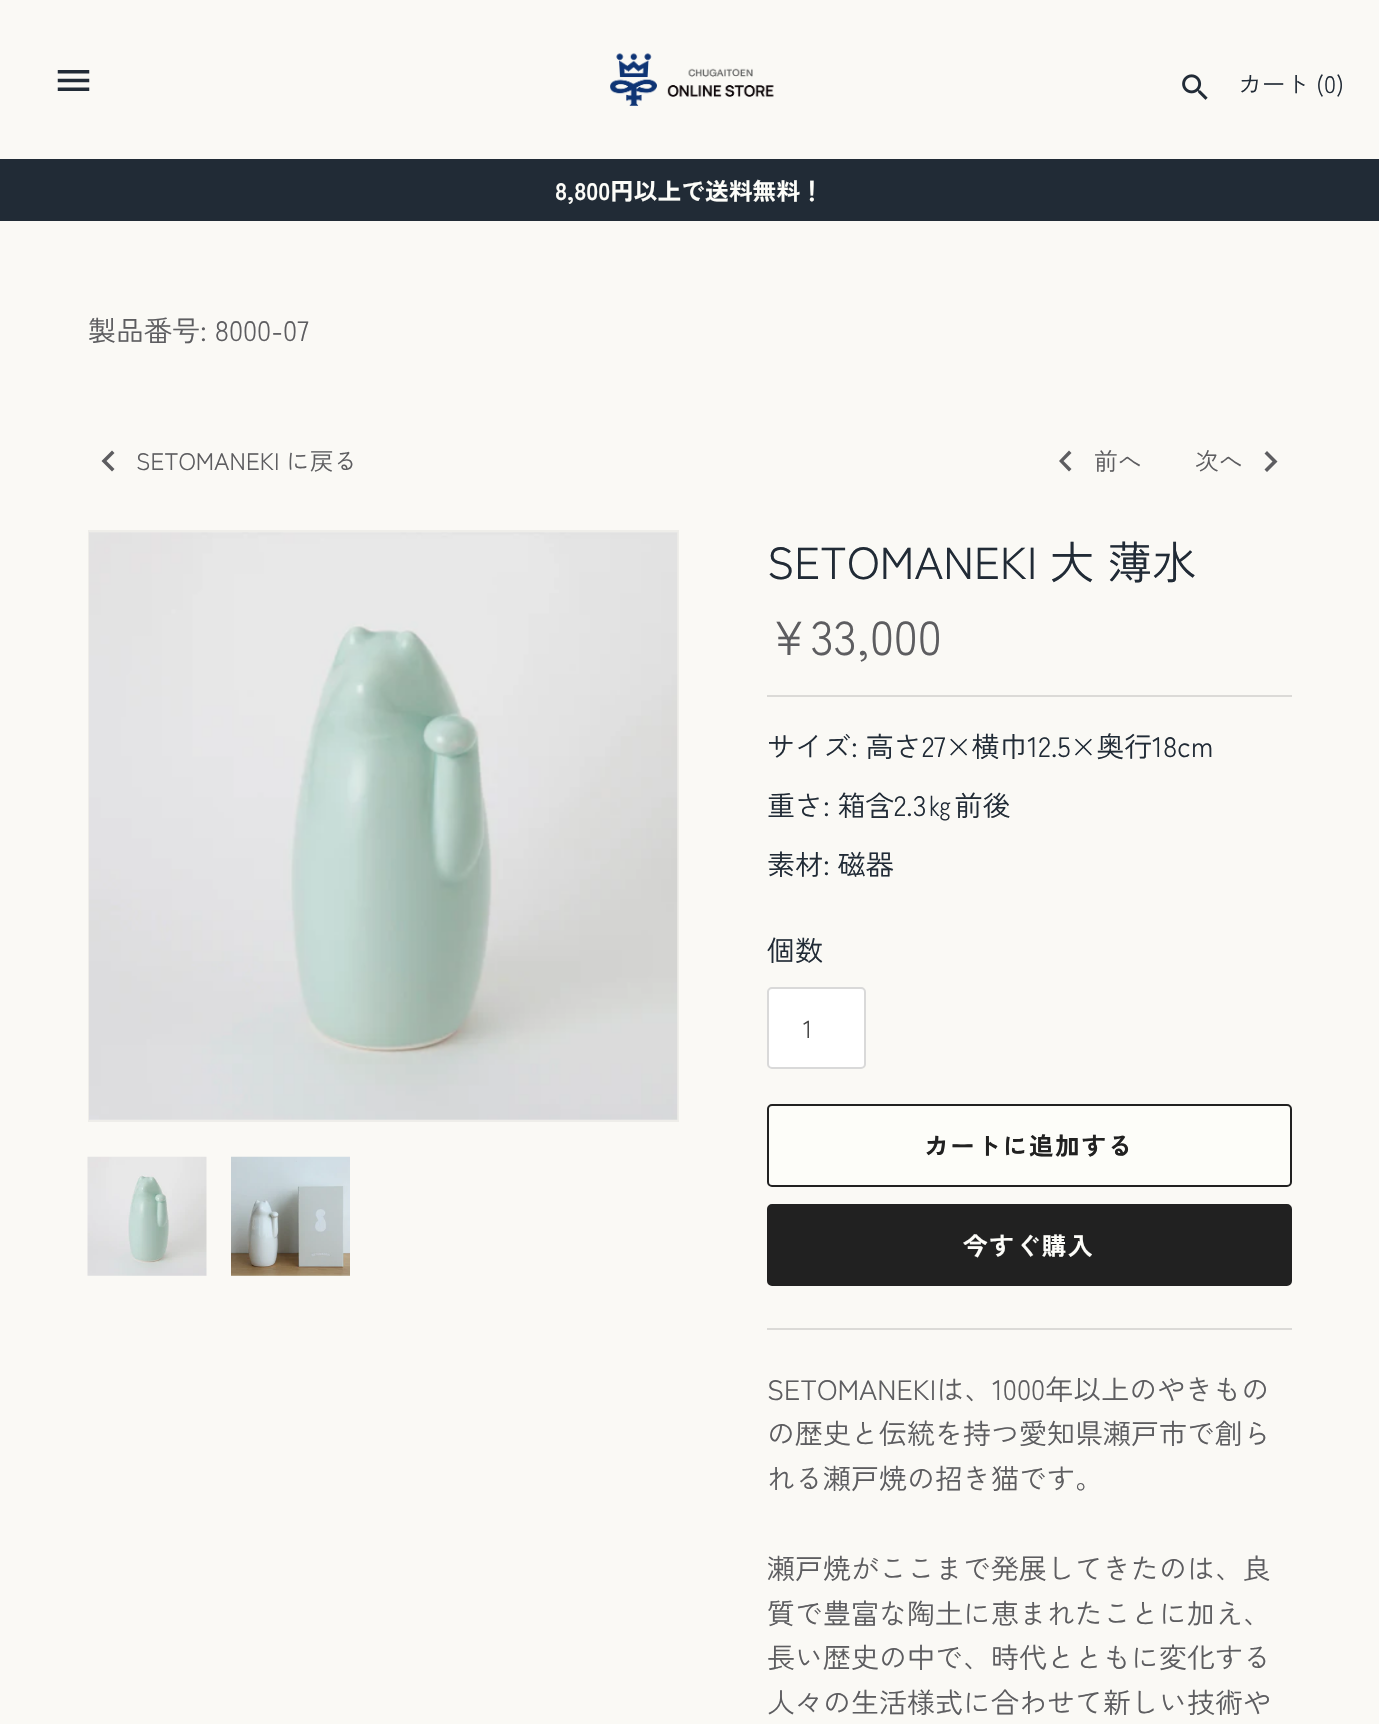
static SkFont makeFont(const char* family, int weight, float size, bool italic = false) {
  SkFontStyle style(weight, SkFontStyle::kNormal_Width,
    italic ? SkFontStyle::kItalic_Slant : SkFontStyle::kUpright_Slant);
  SkFont result(fontMgr->matchFamilyStyle(family, style), size);
  result.setSubpixel(true);
  return result;
}

static void text(SkCanvas* c, const char* s, float x, float y, const SkFont& font, SkColor color) {
  SkPaint ink(SkColor4f::FromColor(color));
  ink.setAntiAlias(true);
  c->drawString(s, x, y, font, ink);
}

static void spacedText(SkCanvas* c, const char* s, float x, float y, const SkFont& font, const SkPaint& ink, float letter, float word) {
  std::vector<SkGlyphID> glyphs(font.countText(s, strlen(s), SkTextEncoding::kUTF8));
  std::vector<float> xs(glyphs.size());
  font.textToGlyphs(s, strlen(s), SkTextEncoding::kUTF8, glyphs);
  font.getXPos(glyphs, xs, x);
  float extra = 0;
  for (size_t i = 0; i < glyphs.size(); i++) {
    xs[i] += extra;
    extra += letter + word * (glyphs[i] == font.unicharToGlyph(' '));
  }
  c->drawTextBlob(SkTextBlob::MakeFromPosHGlyphs(glyphs, xs, y, font), 0, 0, ink);
}

static void box(SkCanvas* c, float l, float t, float r, float b, SkColor color) {
  SkPaint ink(SkColor4f::FromColor(color));
  ink.setAntiAlias(true);
  c->drawRect(SkRect::MakeLTRB(l, t, r, b), ink);
}

static void roundBox(SkCanvas* c, float l, float t, float r, float b, float radius, SkColor color) {
  SkPaint ink(SkColor4f::FromColor(color));
  ink.setAntiAlias(true);
  c->drawRoundRect(SkRect::MakeLTRB(l, t, r, b), radius, radius, ink);
}

static void picture(SkCanvas* c, const char* path, float l, float t, float r, float b) {
  auto image = SkImages::DeferredFromEncodedData(SkData::MakeFromFileName(path));
  c->drawImageRect(image, SkRect::MakeLTRB(l, t, r, b), SkSamplingOptions());
}

void draw(SkCanvas* c) {
  SkPaint paint;
  paint.setAntiAlias(true);
  c->clear(0xfffaf9f5);
  picture(c, "img_01.png", 57, 70, 90, 91);
  picture(c, "img_02.png", 610, 53, 774, 106);
  picture(c, "img_03.png", 1182, 74, 1208, 100);
  SkFont face1 = makeFont("Zen Kaku Gothic New", 400, 23.75f);
  text(c, "カート (0)", 1238, 93, face1, 0xff212b36);
  box(c, 0, 159, 1379, 221, 0xff212b36);
  SkFont face2 = makeFont("Zen Kaku Gothic New", 700, 23.75f);
  text(c, "8,800円以上で送料無料！", 555, 200, face2, 0xfffdfdf9);
  SkFont face3 = makeFont("Zen Kaku Gothic New", 400, 28);
  text(c, "製品番号: 8000-07", 88, 341, face3, 0xff5d5d60);
  text(c, "SETOMANEKI に戻る", 136, 470, face1, 0xff5d5d60);
  paint.setColor(0xff5d5d60);
  c->drawPath(SkPathBuilder().moveTo(114.5f, 469).lineTo(106.5f, 461).lineTo(114.5f, 453).lineTo(112, 450.5f).lineTo(101.5f, 461).lineTo(112, 471.5f).close().detach(), paint);
  text(c, "前へ", 1094, 470, face1, 0xff5d5d60);
  c->drawPath(SkPathBuilder().moveTo(1071.5f, 469).lineTo(1063.5f, 461).lineTo(1071.5f, 453).lineTo(1069, 450.5f).lineTo(1059, 461).lineTo(1069, 471.5f).close().detach(), paint);
  text(c, "次へ", 1195, 470, face1, 0xff5d5d60);
  c->drawPath(SkPathBuilder().moveTo(1264.5f, 469.5f).lineTo(1272.5f, 461.5f).lineTo(1264.5f, 453.5f).lineTo(1267, 451).lineTo(1277.5f, 461.5f).lineTo(1267, 472).close().detach(), paint);
  paint.setStyle(SkPaint::kStroke_Style);
  paint.setStrokeWidth(2);
  paint.setColor(0xffeeede9);
  c->drawRect(SkRect::MakeLTRB(89, 531, 678, 1121), paint);
  picture(c, "img_04.png", 89, 532, 678, 1120);
  picture(c, "img_05.png", 87, 1156, 207, 1276);
  picture(c, "img_06.png", 231, 1156, 350, 1276);
  SkFont face4 = makeFont("Zen Kaku Gothic New", 400, 44.75f);
  text(c, "SETOMANEKI 大 薄水", 767, 579, face4, 0xff212b36);
  SkFont face5 = makeFont("Zen Kaku Gothic New", 400, 47.5f);
  text(c, "¥33,000", 767, 655, face5, 0xff5d5d60);
  box(c, 767, 695, 1292, 697, 0xffdbdad7);
  text(c, "サイズ: 高さ27×横巾12.5×奥行18cm", 767, 757, face3, 0xff212b36);
  text(c, "重さ: 箱含2.3㎏前後", 767, 816, face3, 0xff212b36);
  text(c, "素材: 磁器", 767, 875, face3, 0xff212b36);
  text(c, "個数", 767, 961, face3, 0xff212b36);
  roundBox(c, 767, 987, 866, 1069, 5, 0xffffffff);
  paint.setColor(0x26000000);
  c->drawRoundRect(SkRect::MakeLTRB(768, 988, 865, 1068), 4, 4, paint);
  SkFont face6 = makeFont("Zen Kaku Gothic New", 400, 24.5f);
  text(c, "1", 803, 1038, face6, 0xff444444);
  paint.setStyle(SkPaint::kFill_Style);
  paint.setColor(0xfffdfdf9);
  c->drawRoundRect(SkRect::MakeLTRB(768, 1105, 1291, 1186), 4, 4, paint);
  paint.setStyle(SkPaint::kStroke_Style);
  paint.setColor(0xff212121);
  c->drawRoundRect(SkRect::MakeLTRB(768, 1105, 1291, 1186), 4, 4, paint);
  SkFont face7 = makeFont("Zen Kaku Gothic New", 700, 24.5f);
  paint.setStyle(SkPaint::kFill_Style);
  spacedText(c, "カートに追加する", 924, 1155, face7, paint, 1.75f, 0);
  c->drawRoundRect(SkRect::MakeLTRB(768, 1205, 1291, 1285), 4, 4, paint);
  paint.setStyle(SkPaint::kStroke_Style);
  c->drawRoundRect(SkRect::MakeLTRB(768, 1205, 1291, 1285), 4, 4, paint);
  paint.setStyle(SkPaint::kFill_Style);
  paint.setColor(0xfffdfdf9);
  spacedText(c, "今すぐ購入", 963, 1255, face7, paint, 1.75f, 0);
  box(c, 767, 1328, 1292, 1330, 0xffdbdad7);
  text(c, "SETOMANEKIは、1000年以上のやきもの", 767, 1400, face3, 0xff5d5d60);
  text(c, "の歴史と伝統を持つ愛知県瀬戸市で創ら", 767, 1444, face3, 0xff5d5d60);
  text(c, "れる瀬戸焼の招き猫です。", 767, 1489, face3, 0xff5d5d60);
  text(c, "瀬戸焼がここまで発展してきたのは、良", 767, 1579, face3, 0xff5d5d60);
  text(c, "質で豊富な陶土に恵まれたことに加え、", 767, 1624, face3, 0xff5d5d60);
  text(c, "長い歴史の中で、時代とともに変化する", 767, 1668, face3, 0xff5d5d60);
  text(c, "人々の生活様式に合わせて新しい技術や", 767, 1713, face3, 0xff5d5d60);
}
